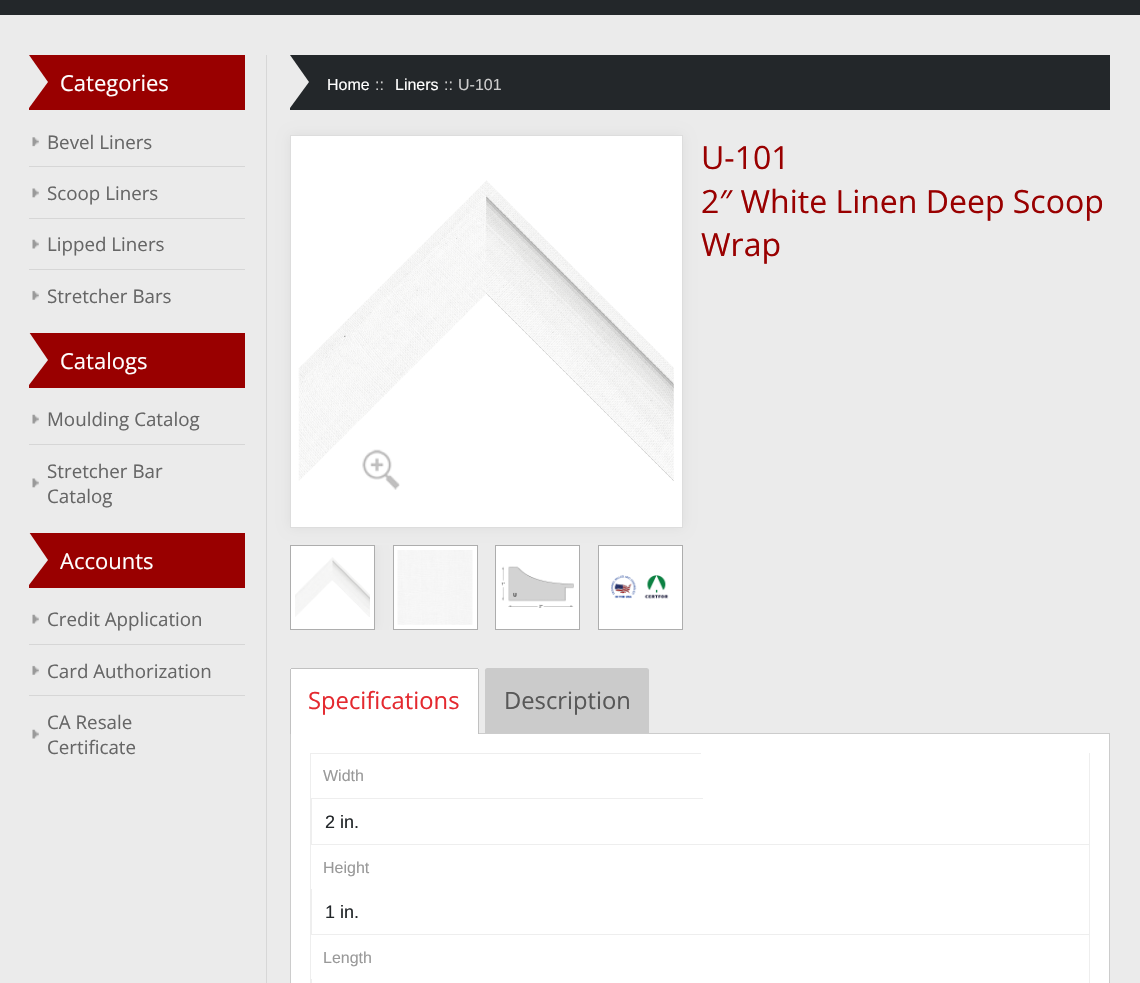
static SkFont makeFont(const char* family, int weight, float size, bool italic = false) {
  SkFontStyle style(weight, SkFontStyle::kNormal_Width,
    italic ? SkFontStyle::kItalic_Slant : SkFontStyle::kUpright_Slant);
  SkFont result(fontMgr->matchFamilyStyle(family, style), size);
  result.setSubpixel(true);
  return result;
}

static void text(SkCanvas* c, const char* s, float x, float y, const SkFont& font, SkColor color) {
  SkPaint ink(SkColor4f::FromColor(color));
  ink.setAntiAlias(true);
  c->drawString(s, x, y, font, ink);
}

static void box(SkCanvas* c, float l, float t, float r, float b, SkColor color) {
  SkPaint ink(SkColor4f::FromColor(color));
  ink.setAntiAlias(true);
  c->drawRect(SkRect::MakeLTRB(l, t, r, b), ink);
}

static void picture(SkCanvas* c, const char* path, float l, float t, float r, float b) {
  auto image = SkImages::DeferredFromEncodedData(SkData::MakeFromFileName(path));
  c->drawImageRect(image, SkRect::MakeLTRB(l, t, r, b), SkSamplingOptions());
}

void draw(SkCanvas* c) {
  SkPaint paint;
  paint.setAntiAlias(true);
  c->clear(0xffebebeb);
  box(c, 0, 0, 1140, 15, 0xff23272a);
  box(c, 29, 55, 245, 110, 0xff990000);
  paint.setColor(0xffebebeb);
  c->drawPath(SkPathBuilder().moveTo(29, 108).lineTo(29, 55).lineTo(48, 82).close().detach(), paint);
  SkFont face1 = makeFont("Open Sans", 400, 22);
  text(c, "Categories", 60, 91, face1, 0xffffffff);
  picture(c, "img_01.png", 32, 137, 39, 147);
  box(c, 29, 166, 245, 167, 0xffd6d6d6);
  SkFont face2 = makeFont("Open Sans", 400, 18.75f);
  text(c, "Bevel Liners", 47, 149, face2, 0xff666666);
  picture(c, "img_02.png", 32, 188, 39, 198);
  box(c, 29, 218, 245, 219, 0xffd6d6d6);
  text(c, "Scoop Liners", 47, 200, face2, 0xff666666);
  picture(c, "img_03.png", 32, 239, 39, 249);
  box(c, 29, 269, 245, 270, 0xffd6d6d6);
  text(c, "Lipped Liners", 47, 251, face2, 0xff666666);
  picture(c, "img_04.png", 32, 290, 39, 300);
  text(c, "Stretcher Bars", 47, 303, face2, 0xff666666);
  box(c, 29, 333, 245, 388, 0xff990000);
  c->drawPath(SkPathBuilder().moveTo(29, 385).lineTo(29, 332).lineTo(48, 360).close().detach(), paint);
  text(c, "Catalogs", 60, 369, face1, 0xffffffff);
  picture(c, "img_03.png", 32, 414, 39, 424);
  box(c, 29, 444, 245, 445, 0xffd6d6d6);
  text(c, "Moulding Catalog", 47, 426, face2, 0xff666666);
  picture(c, "img_02.png", 32, 478, 39, 488);
  text(c, "Stretcher Bar", 47, 478, face2, 0xff666666);
  text(c, "Catalog", 47, 503, face2, 0xff666666);
  box(c, 29, 533, 245, 588, 0xff990000);
  c->drawPath(SkPathBuilder().moveTo(29, 585).lineTo(29, 532).lineTo(48, 560).close().detach(), paint);
  text(c, "Accounts", 60, 569, face1, 0xffffffff);
  picture(c, "img_03.png", 32, 614, 39, 624);
  box(c, 29, 644, 245, 645, 0xffd6d6d6);
  text(c, "Credit Application", 47, 626, face2, 0xff666666);
  picture(c, "img_05.png", 32, 665, 39, 675);
  box(c, 29, 695, 245, 696, 0xffd6d6d6);
  text(c, "Card Authorization", 47, 678, face2, 0xff666666);
  picture(c, "img_03.png", 32, 729, 39, 739);
  text(c, "CA Resale", 47, 729, face2, 0xff666666);
  text(c, "Certificate", 47, 754, face2, 0xff666666);
  box(c, 266, 55, 267, 983, 0xffd7d7d7);
  box(c, 290, 55, 1110, 110, 0xff23272a);
  c->drawPath(SkPathBuilder().moveTo(290, 108).lineTo(290, 55).lineTo(309, 82).close().detach(), paint);
  SkFont face3 = makeFont("Liberation Sans", 400, 16);
  text(c, "Home", 327, 90, face3, 0xffffffff);
  text(c, "::", 375, 90, face3, 0xffcccccc);
  text(c, "Liners", 395, 90, face3, 0xffffffff);
  text(c, "::", 444, 90, face3, 0xffcccccc);
  text(c, "U-101", 458, 90, face3, 0xffcccccc);
  paint.setColor(0xffdddddd);
  paint.setMaskFilter(SkMaskFilter::MakeBlur(kNormal_SkBlurStyle, 6));
  c->drawRect(SkRect::MakeLTRB(290, 135, 683, 528), paint);
  paint.setMaskFilter(nullptr);
  paint.setColor(0xffffffff);
  c->drawRect(SkRect::MakeLTRB(290.5f, 135.5f, 682.5f, 527.5f), paint);
  paint.setStyle(SkPaint::kStroke_Style);
  paint.setStrokeWidth(1);
  paint.setColor(0xffdddddd);
  c->drawRect(SkRect::MakeLTRB(290.5f, 135.5f, 682.5f, 527.5f), paint);
  picture(c, "img_06.png", 298, 180, 674, 481);
  picture(c, "img_07.png", 362, 449, 400, 490);
  c->save();
  c->clipRect(SkRect::MakeLTRB(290, 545, 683, 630));
  paint.setStyle(SkPaint::kFill_Style);
  paint.setMaskFilter(SkMaskFilter::MakeBlur(kNormal_SkBlurStyle, 6));
  c->drawRect(SkRect::MakeLTRB(290, 545, 375, 630), paint);
  paint.setMaskFilter(nullptr);
  c->restore();
  paint.setColor(0xffffffff);
  c->drawRect(SkRect::MakeLTRB(290.5f, 545.5f, 374.5f, 629.5f), paint);
  paint.setStyle(SkPaint::kStroke_Style);
  paint.setColor(0xffadadad);
  c->drawRect(SkRect::MakeLTRB(290.5f, 545.5f, 374.5f, 629.5f), paint);
  picture(c, "img_08.png", 295, 557, 370, 617);
  paint.setStyle(SkPaint::kFill_Style);
  paint.setColor(0xffffffff);
  c->drawRect(SkRect::MakeLTRB(393.5f, 545.5f, 477.5f, 629.5f), paint);
  paint.setStyle(SkPaint::kStroke_Style);
  paint.setColor(0xffadadad);
  c->drawRect(SkRect::MakeLTRB(393.5f, 545.5f, 477.5f, 629.5f), paint);
  picture(c, "img_09.png", 397, 550, 473, 625);
  paint.setStyle(SkPaint::kFill_Style);
  paint.setColor(0xffffffff);
  c->drawRect(SkRect::MakeLTRB(495.5f, 545.5f, 579.5f, 629.5f), paint);
  paint.setStyle(SkPaint::kStroke_Style);
  paint.setColor(0xffadadad);
  c->drawRect(SkRect::MakeLTRB(495.5f, 545.5f, 579.5f, 629.5f), paint);
  picture(c, "img_10.png", 501, 566, 574, 608);
  paint.setStyle(SkPaint::kFill_Style);
  paint.setColor(0xffffffff);
  c->drawRect(SkRect::MakeLTRB(598.5f, 545.5f, 682.5f, 629.5f), paint);
  paint.setStyle(SkPaint::kStroke_Style);
  paint.setColor(0xffadadad);
  c->drawRect(SkRect::MakeLTRB(598.5f, 545.5f, 682.5f, 629.5f), paint);
  picture(c, "img_11.png", 611, 575, 669, 599);
  SkFont face4 = makeFont("Open Sans", 400, 32);
  text(c, "U-101", 701, 169, face4, 0xff990000);
  text(c, "2″ White Linen Deep Scoop", 701, 213, face4, 0xff990000);
  text(c, "Wrap", 701, 256, face4, 0xff990000);
  paint.setStyle(SkPaint::kFill_Style);
  paint.setColor(0xffffffff);
  c->drawRect(SkRect::MakeLTRB(290.5f, 733.5f, 1109.5f, 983.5f), paint);
  paint.setStyle(SkPaint::kStroke_Style);
  paint.setColor(0xffcccccc);
  c->drawRect(SkRect::MakeLTRB(290.5f, 733.5f, 1109.5f, 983.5f), paint);
  paint.setStyle(SkPaint::kFill_Style);
  paint.setColor(0xffffffff);
  c->drawPath(SkPathBuilder().moveTo(292.5f, 668).lineTo(476.5f, 668).cubicTo(478, 668, 479, 669, 479, 670.5f).lineTo(479, 734).lineTo(290, 734).lineTo(290, 670.5f).cubicTo(290, 669, 291, 668, 292.5f, 668).close().detach(), paint);
  box(c, 291, 668, 478, 669, 0xffc1c1c1);
  box(c, 478, 669, 479, 734, 0xffc1c1c1);
  box(c, 290, 669, 291, 734, 0xffc1c1c1);
  SkFont face5 = makeFont("Open Sans", 400, 23.75f);
  text(c, "Specifications", 308, 709, face5, 0xffe4292f);
  paint.setColor(0xffcbcbcb);
  c->drawPath(SkPathBuilder().moveTo(487.5f, 668).lineTo(646.5f, 668).cubicTo(648, 668, 649, 669, 649, 670.5f).lineTo(649, 733).lineTo(485, 733).lineTo(485, 670.5f).cubicTo(485, 669, 486, 668, 487.5f, 668).close().detach(), paint);
  text(c, "Description", 504, 709, face5, 0xff585858);
  box(c, 1089, 753, 1090, 983, 0xffeeeeee);
  box(c, 310, 844, 1090, 845, 0xffeeeeee);
  box(c, 310, 753, 311, 845, 0xffeeeeee);
  box(c, 311, 753, 701, 754, 0xffeeeeee);
  text(c, "Width", 323, 781, face3, 0xff999999);
  box(c, 311, 798, 703, 799, 0xffeeeeee);
  box(c, 311, 798, 312, 844, 0xffeeeeee);
  SkFont face6 = makeFont("Liberation Sans", 400, 18);
  text(c, "2 in.", 325, 828, face6, 0xff23272a);
  box(c, 310, 934, 1090, 935, 0xffeeeeee);
  box(c, 310, 845, 311, 983, 0xffeeeeee);
  text(c, "Height", 323, 873, face3, 0xff999999);
  box(c, 311, 889, 312, 934, 0xffeeeeee);
  text(c, "1 in.", 325, 918, face6, 0xff23272a);
  text(c, "Length", 323, 963, face3, 0xff999999);
  box(c, 311, 979, 312, 983, 0xffeeeeee);
}
